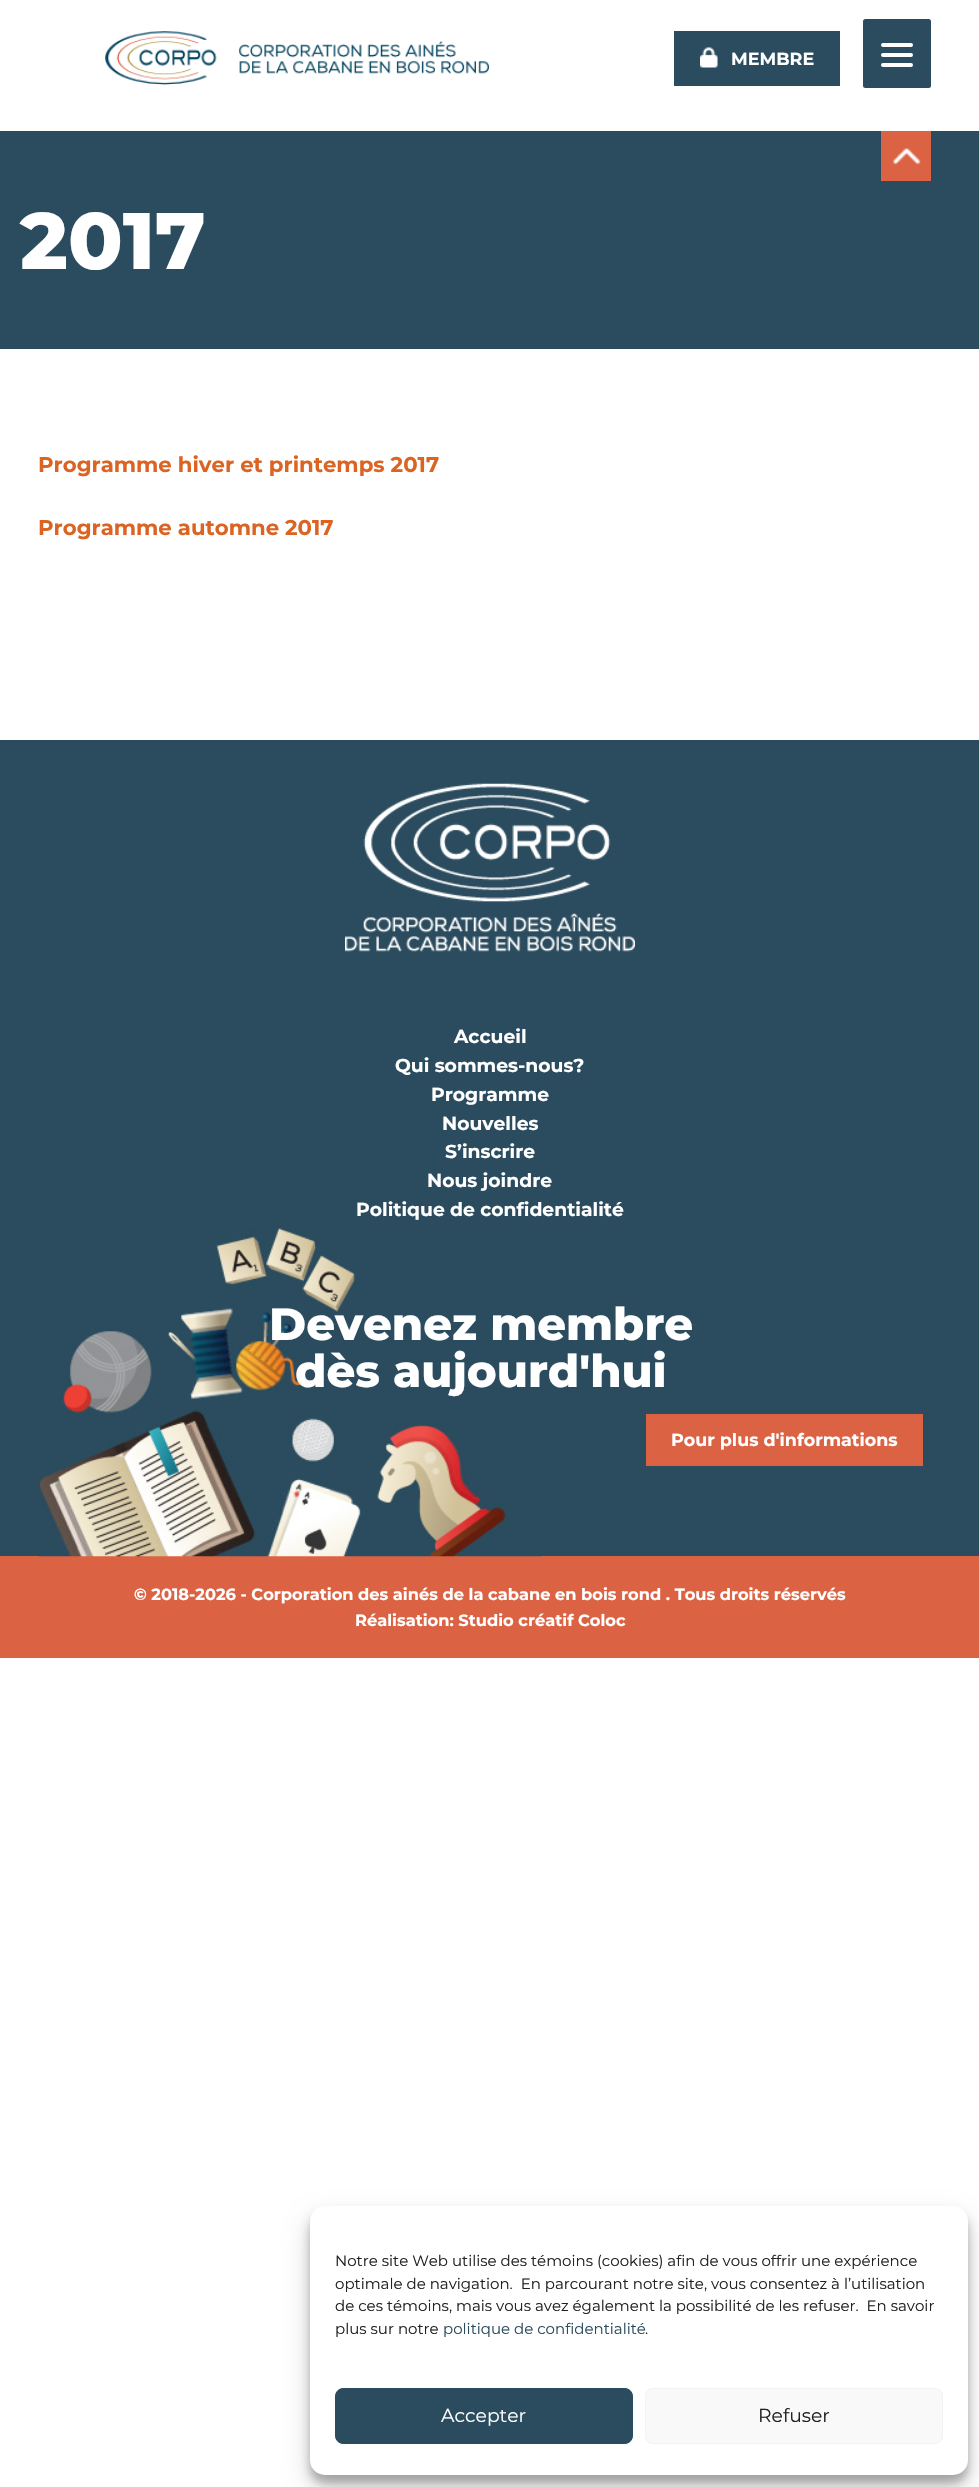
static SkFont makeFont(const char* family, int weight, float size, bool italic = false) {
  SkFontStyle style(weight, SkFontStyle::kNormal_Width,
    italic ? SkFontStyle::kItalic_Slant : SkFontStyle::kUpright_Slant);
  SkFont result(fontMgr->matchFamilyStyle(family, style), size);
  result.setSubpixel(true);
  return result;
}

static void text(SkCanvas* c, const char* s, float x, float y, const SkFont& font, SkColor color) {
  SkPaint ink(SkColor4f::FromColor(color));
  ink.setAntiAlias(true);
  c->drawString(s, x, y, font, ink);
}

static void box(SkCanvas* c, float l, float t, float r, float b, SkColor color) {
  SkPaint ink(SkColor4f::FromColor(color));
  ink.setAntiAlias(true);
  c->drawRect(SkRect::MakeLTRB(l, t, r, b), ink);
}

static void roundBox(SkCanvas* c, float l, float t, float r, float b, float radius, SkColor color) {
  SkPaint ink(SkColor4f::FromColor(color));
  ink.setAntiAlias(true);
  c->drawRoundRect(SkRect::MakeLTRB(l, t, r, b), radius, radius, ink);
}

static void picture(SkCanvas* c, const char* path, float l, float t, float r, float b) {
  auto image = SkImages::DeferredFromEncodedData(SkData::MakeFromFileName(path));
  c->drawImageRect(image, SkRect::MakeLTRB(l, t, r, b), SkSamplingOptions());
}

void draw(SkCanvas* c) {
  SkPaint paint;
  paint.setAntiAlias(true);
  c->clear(0xffffffff);
  roundBox(c, 863, 19, 931, 88, 2.5f, 0xff2b4c5e);
  roundBox(c, 881, 53, 913, 57, 2, 0xffffffff);
  roundBox(c, 881, 43, 913, 47, 2, 0xffffffff);
  roundBox(c, 881, 63, 913, 67, 2, 0xffffffff);
  picture(c, "img_01.png", 105, 31, 489, 85);
  box(c, 674, 31, 840, 86, 0xff2b4c5f);
  picture(c, "img_02.png", 700, 47, 718, 68);
  SkFont face1 = makeFont("Montserrat", 700, 17.5f);
  text(c, "MEMBRE", 731, 65, face1, 0xffffffff);
  box(c, 0, 131, 979, 349, 0xff2b4c5e);
  box(c, 881, 131, 931, 181, 0xffdb6243);
  picture(c, "img_03.png", 892, 148, 921, 165);
  SkFont face2 = makeFont("Montserrat", 800, 80);
  text(c, "2017", 20, 269, face2, 0xffffffff);
  SkFont face3 = makeFont("Montserrat", 700, 21.25f);
  text(c, "Programme hiver et printemps 2017", 38, 472, face3, 0xffdb6423);
  text(c, "Programme automne 2017", 38, 535, face3, 0xffdb6423);
  box(c, 0, 740, 979, 1556, 0xff2b4c5e);
  picture(c, "img_04.png", 345, 783, 635, 952);
  SkFont face4 = makeFont("Montserrat", 700, 18.75f);
  text(c, "Accueil", 454, 1043, face4, 0xffffffff);
  text(c, "Qui sommes-nous?", 395, 1072, face4, 0xffffffff);
  text(c, "Programme", 431, 1101, face4, 0xffffffff);
  text(c, "Nouvelles", 442, 1130, face4, 0xffffffff);
  text(c, "S’inscrire", 445, 1158, face4, 0xffffffff);
  text(c, "Nous joindre", 427, 1187, face4, 0xffffffff);
  text(c, "Politique de confidentialité", 356, 1216, face4, 0xffffffff);
  box(c, 0, 1556, 979, 1658, 0xffdb6243);
  picture(c, "img_05.png", 38, 1228, 542, 1557);
  SkFont face5 = makeFont("Montserrat", 800, 45);
  text(c, "Devenez membre", 269, 1340, face5, 0xffffffff);
  text(c, "dès aujourd'hui", 295, 1387, face5, 0xffffffff);
  box(c, 646, 1414, 923, 1466, 0xffdb6243);
  text(c, "Pour plus d'informations", 671, 1446, face1, 0xffffffff);
  SkFont face6 = makeFont("Montserrat", 700, 16.25f);
  text(c, "© 2018-2026 - Corporation des ainés de la cabane en bois rond . Tous droits réservés", 134, 1600, face6, 0xffffffff);
  text(c, "Réalisation: Studio créatif Coloc", 355, 1626, face6, 0xffffffff);
  paint.setColor(0x3b000000);
  paint.setMaskFilter(SkMaskFilter::MakeBlur(kNormal_SkBlurStyle, 4));
  c->drawRoundRect(SkRect::MakeLTRB(310, 2214, 968, 2483), 15, 15, paint);
  paint.setMaskFilter(nullptr);
  paint.setColor(0x30000000);
  paint.setMaskFilter(SkMaskFilter::MakeBlur(kNormal_SkBlurStyle, 12.5f));
  c->drawRoundRect(SkRect::MakeLTRB(310, 2219, 968, 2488), 15, 15, paint);
  paint.setMaskFilter(nullptr);
  roundBox(c, 310, 2206, 968, 2475, 15, 0xffffffff);
  SkFont face7 = makeFont("Montserrat", 400, 15);
  text(c, "Notre site Web utilise des témoins (cookies) afin de vous offrir une expérience", 335, 2266, face7, 0xff222222);
  text(c, "optimale de navigation.  En parcourant notre site, vous consentez à l’utilisation", 335, 2289, face7, 0xff222222);
  text(c, "de ces témoins, mais vous avez également la possibilité de les refuser.  En savoir", 335, 2311, face7, 0xff222222);
  text(c, "plus sur notre", 335, 2334, face7, 0xff222222);
  text(c, "politique de confidentialité", 443, 2334, face7, 0xff2b4c5e);
  text(c, ".", 645, 2334, face7, 0xff222222);
  paint.setColor(0xff2b4c5e);
  c->drawRoundRect(SkRect::MakeLTRB(335.5f, 2388.5f, 632.5f, 2443.5f), 7.5f, 7.5f, paint);
  paint.setStyle(SkPaint::kStroke_Style);
  paint.setStrokeWidth(1);
  c->drawRoundRect(SkRect::MakeLTRB(335.5f, 2388.5f, 632.5f, 2443.5f), 7.5f, 7.5f, paint);
  SkFont face8 = makeFont("Montserrat", 400, 18.75f);
  text(c, "Accepter", 441, 2422, face8, 0xffffffff);
  paint.setStyle(SkPaint::kFill_Style);
  paint.setColor(0xfff9f9f9);
  c->drawRoundRect(SkRect::MakeLTRB(645.5f, 2388.5f, 942.5f, 2443.5f), 7.5f, 7.5f, paint);
  paint.setStyle(SkPaint::kStroke_Style);
  paint.setColor(0xfff2f2f2);
  c->drawRoundRect(SkRect::MakeLTRB(645.5f, 2388.5f, 942.5f, 2443.5f), 7.5f, 7.5f, paint);
  text(c, "Refuser", 758, 2422, face8, 0xff222222);
}
